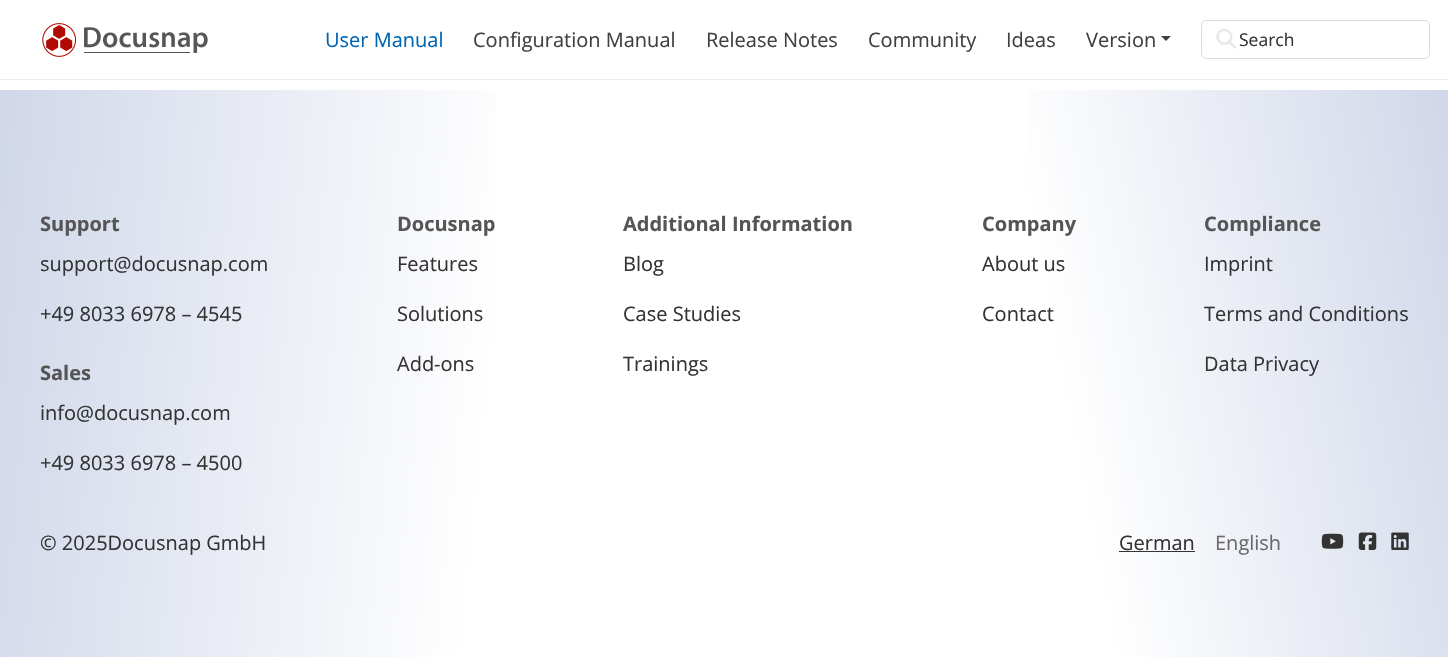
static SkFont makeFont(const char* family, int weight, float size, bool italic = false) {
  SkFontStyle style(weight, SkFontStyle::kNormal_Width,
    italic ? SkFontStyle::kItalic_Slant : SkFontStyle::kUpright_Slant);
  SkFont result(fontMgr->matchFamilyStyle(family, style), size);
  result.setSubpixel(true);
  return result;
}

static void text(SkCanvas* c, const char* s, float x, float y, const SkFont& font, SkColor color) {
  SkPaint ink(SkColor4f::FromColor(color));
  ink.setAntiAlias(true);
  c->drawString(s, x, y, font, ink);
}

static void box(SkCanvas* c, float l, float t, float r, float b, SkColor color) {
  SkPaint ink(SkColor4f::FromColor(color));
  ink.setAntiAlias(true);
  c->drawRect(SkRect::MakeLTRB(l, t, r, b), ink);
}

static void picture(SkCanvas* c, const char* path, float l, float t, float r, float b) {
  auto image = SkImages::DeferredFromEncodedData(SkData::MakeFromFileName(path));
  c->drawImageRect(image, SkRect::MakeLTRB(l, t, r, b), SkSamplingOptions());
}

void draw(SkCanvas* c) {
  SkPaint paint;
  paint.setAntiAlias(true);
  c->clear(0xffffffff);
  box(c, 0, 79, 1448, 80, 0xffeaeff4);
  picture(c, "img_01.png", 42, 23, 208, 57);
  SkFont face1 = makeFont("Open Sans", 400, 20);
  text(c, "User Manual", 325, 47, face1, 0xff0065b3);
  text(c, "Configuration Manual", 473, 47, face1, 0xff404040);
  text(c, "Release Notes", 706, 47, face1, 0xff404040);
  text(c, "Community", 868, 47, face1, 0xff404040);
  text(c, "Ideas", 1006, 47, face1, 0xff404040);
  text(c, "Version", 1086, 47, face1, 0xff404040);
  paint.setColor(0xff404040);
  c->drawPath(SkPathBuilder().moveTo(1161, 36).lineTo(1171, 36).lineTo(1166, 41).close().detach(), paint);
  paint.setStyle(SkPaint::kStroke_Style);
  paint.setStrokeWidth(1);
  paint.setColor(0xffdbdbdb);
  c->drawRoundRect(SkRect::MakeLTRB(1201.5f, 20.5f, 1429.5f, 58.5f), 4.5f, 4.5f, paint);
  picture(c, "img_02.png", 1216, 28, 1237, 49);
  SkFont face2 = makeFont("Open Sans", 400, 17.5f);
  text(c, "Search", 1239, 46, face2, 0xff333333);
  paint.setStyle(SkPaint::kFill_Style);
  {
    const SkColor colors[] = {0xffcfd6e8, 0xffffffff};
    const float stops[] = {0, 0.35f};
    const SkPoint ends[] = {{-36, 294}, {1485, 454}};
    paint.setShader(SkGradientShader::MakeLinear(ends, colors, stops, 2, SkTileMode::kClamp));
    paint.setAlpha(255);
  }
  c->drawRect(SkRect::MakeLTRB(0, 90, 496, 657), paint);
  {
    const SkColor colors[] = {0x668597c5, 0x008597c5};
    const float stops[] = {0, 0.29f};
    const SkPoint ends[] = {{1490, 225}, {-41, 523}};
    paint.setShader(SkGradientShader::MakeLinear(ends, colors, stops, 2, SkTileMode::kClamp));
    paint.setAlpha(255);
  }
  c->drawRect(SkRect::MakeLTRB(1028, 90, 1448, 657), paint);
  SkFont face3 = makeFont("Open Sans", 700, 20);
  text(c, "Support", 40, 231, face3, 0xff555555);
  text(c, "support@docusnap.com", 40, 271, face1, 0xff333333);
  text(c, "+49 8033 6978 – 4545", 40, 321, face1, 0xff333333);
  text(c, "Sales", 40, 380, face3, 0xff555555);
  text(c, "info@docusnap.com", 40, 420, face1, 0xff333333);
  text(c, "+49 8033 6978 – 4500", 40, 470, face1, 0xff333333);
  text(c, "Docusnap", 397, 231, face3, 0xff555555);
  text(c, "Features", 397, 271, face1, 0xff333333);
  text(c, "Solutions", 397, 321, face1, 0xff333333);
  text(c, "Add-ons", 397, 371, face1, 0xff333333);
  text(c, "Additional Information", 623, 231, face3, 0xff555555);
  text(c, "Blog", 623, 271, face1, 0xff333333);
  text(c, "Case Studies", 623, 321, face1, 0xff333333);
  text(c, "Trainings", 623, 371, face1, 0xff333333);
  text(c, "Company", 982, 231, face3, 0xff555555);
  text(c, "About us", 982, 271, face1, 0xff333333);
  text(c, "Contact", 982, 321, face1, 0xff333333);
  text(c, "Compliance", 1204, 231, face3, 0xff555555);
  text(c, "Imprint", 1204, 271, face1, 0xff333333);
  text(c, "Terms and Conditions", 1204, 321, face1, 0xff333333);
  text(c, "Data Privacy", 1204, 371, face1, 0xff333333);
  text(c, "© 2025Docusnap GmbH", 40, 550, face1, 0xff333333);
  text(c, "German", 1119, 550, face1, 0xff333333);
  box(c, 1119, 551, 1195, 552, 0xff333333);
  text(c, "English", 1215, 550, face1, 0xff6a6a6d);
  picture(c, "img_03.png", 1321, 533, 1344, 549);
  picture(c, "img_04.png", 1358, 532, 1377, 550);
  picture(c, "img_05.png", 1391, 532, 1409, 550);
}
